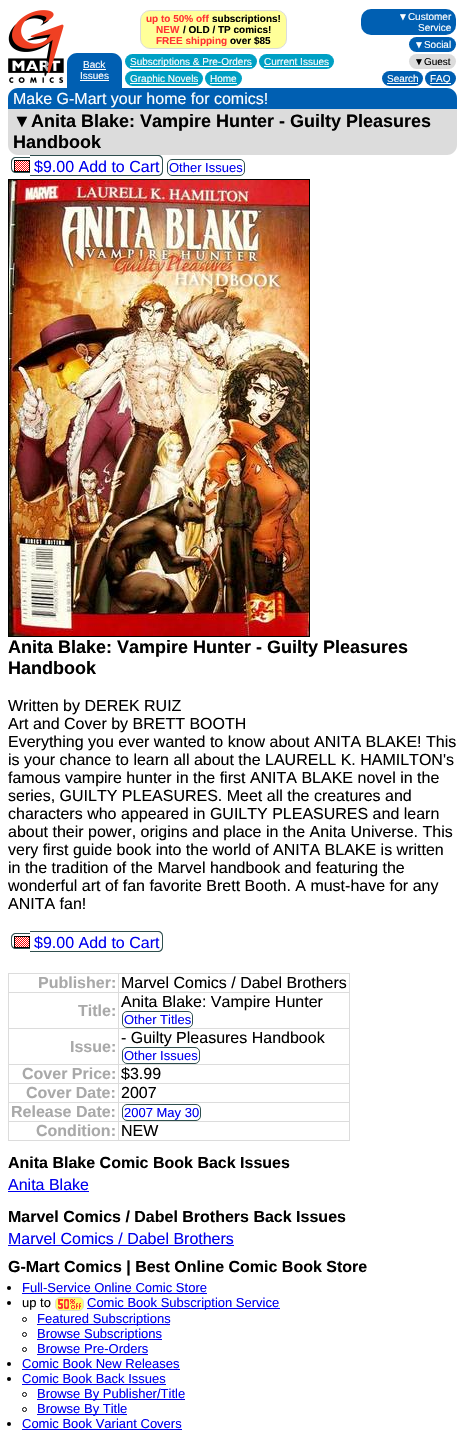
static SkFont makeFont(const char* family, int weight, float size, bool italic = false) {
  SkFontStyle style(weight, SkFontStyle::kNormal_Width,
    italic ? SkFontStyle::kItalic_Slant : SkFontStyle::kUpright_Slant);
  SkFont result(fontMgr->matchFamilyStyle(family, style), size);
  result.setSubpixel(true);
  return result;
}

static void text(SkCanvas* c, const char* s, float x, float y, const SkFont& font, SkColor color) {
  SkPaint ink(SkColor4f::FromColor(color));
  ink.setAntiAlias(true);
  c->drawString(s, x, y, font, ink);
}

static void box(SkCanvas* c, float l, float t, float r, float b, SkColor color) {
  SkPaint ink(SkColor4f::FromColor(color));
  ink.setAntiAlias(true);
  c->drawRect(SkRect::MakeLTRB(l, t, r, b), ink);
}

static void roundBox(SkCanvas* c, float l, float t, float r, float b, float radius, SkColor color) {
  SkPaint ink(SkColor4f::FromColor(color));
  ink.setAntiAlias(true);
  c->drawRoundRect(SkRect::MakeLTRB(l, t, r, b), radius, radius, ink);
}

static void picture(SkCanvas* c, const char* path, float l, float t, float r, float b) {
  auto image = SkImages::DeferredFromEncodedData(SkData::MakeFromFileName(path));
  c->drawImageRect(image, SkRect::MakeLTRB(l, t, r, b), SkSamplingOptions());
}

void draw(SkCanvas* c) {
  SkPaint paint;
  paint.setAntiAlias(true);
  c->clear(0xffffffff);
  picture(c, "img_01.png", 8, 10, 64, 83);
  paint.setColor(0xffffff99);
  c->drawRoundRect(SkRect::MakeLTRB(140.5f, 10.5f, 286.5f, 48.5f), 9.5f, 9.5f, paint);
  paint.setStyle(SkPaint::kStroke_Style);
  paint.setStrokeWidth(1);
  paint.setColor(0xffdcdcdc);
  c->drawRoundRect(SkRect::MakeLTRB(140.5f, 10.5f, 286.5f, 48.5f), 9.5f, 9.5f, paint);
  SkFont face1 = makeFont("Liberation Sans", 700, 10);
  text(c, "up to 50% off", 146, 22, face1, 0xffff3333);
  text(c, "subscriptions!", 212, 22, face1, 0xff000000);
  text(c, "NEW", 156, 33, face1, 0xffff3333);
  text(c, "/ OLD / TP comics!", 183, 33, face1, 0xff000000);
  text(c, "FREE shipping", 156, 44, face1, 0xffff3333);
  text(c, "over $85", 230, 44, face1, 0xff000000);
  roundBox(c, 361, 9, 456, 35, 10, 0xff005fb2);
  SkFont face2 = makeFont("Liberation Sans", 400, 10);
  text(c, "▼Customer", 398, 20, face2, 0xffffffff);
  text(c, "Service", 418, 31, face2, 0xffffffff);
  roundBox(c, 409, 37, 456, 52, 7.5f, 0xff005fb2);
  text(c, "▼Social", 414, 48, face2, 0xffffffff);
  roundBox(c, 409, 54, 456, 69, 7.5f, 0xffdcdcdc);
  text(c, "▼Guest", 414, 65, face2, 0xff000000);
  roundBox(c, 382, 71, 423, 86, 7.5f, 0xff005fb2);
  text(c, "Search", 387, 82, face2, 0xffffffff);
  box(c, 387, 83, 418, 84, 0xffffffff);
  roundBox(c, 425, 71, 456, 86, 7.5f, 0xff005fb2);
  box(c, 430, 83, 451, 84, 0xffffffff);
  text(c, "FAQ", 430, 82, face2, 0xffffffff);
  paint.setStyle(SkPaint::kFill_Style);
  paint.setColor(0xff005fb2);
  c->drawPath(SkPathBuilder().moveTo(77, 53).lineTo(112, 53).cubicTo(117.5f, 53, 122, 57.5f, 122, 63).lineTo(122, 89).lineTo(67, 89).lineTo(67, 63).cubicTo(67, 57.5f, 71.5f, 53, 77, 53).close().detach(), paint);
  text(c, "Back", 83, 68, face2, 0xffffffff);
  box(c, 83, 69, 106, 70, 0xffffffff);
  text(c, "Issues", 80, 79, face2, 0xffffffff);
  box(c, 80, 80, 109, 81, 0xffffffff);
  roundBox(c, 125, 54, 257, 69, 7.5f, 0xff00a0c4);
  box(c, 130, 66, 252, 67, 0xffffffff);
  text(c, "Subscriptions & Pre-Orders", 130, 65, face2, 0xffffffff);
  roundBox(c, 259, 54, 334, 69, 7.5f, 0xff00a0c4);
  text(c, "Current Issues", 264, 65, face2, 0xffffffff);
  box(c, 264, 66, 329, 67, 0xffffffff);
  roundBox(c, 125, 71, 203, 86, 7.5f, 0xff00a0c4);
  box(c, 130, 83, 198, 84, 0xffffffff);
  text(c, "Graphic Novels", 130, 82, face2, 0xffffffff);
  roundBox(c, 205, 71, 242, 86, 7.5f, 0xff00a0c4);
  text(c, "Home", 210, 82, face2, 0xffffffff);
  box(c, 210, 83, 237, 84, 0xffffffff);
  c->drawPath(SkPathBuilder().moveTo(18, 88).lineTo(447, 88).cubicTo(452.5f, 88, 457, 92.5f, 457, 98).lineTo(457, 110).lineTo(8, 110).lineTo(8, 98).cubicTo(8, 92.5f, 12.5f, 88, 18, 88).close().detach(), paint);
  SkFont face3 = makeFont("Liberation Sans", 400, 16);
  text(c, "Make G-Mart your home for comics!", 13, 104, face3, 0xffffffff);
  paint.setColor(0xffdcdcdc);
  c->drawPath(SkPathBuilder().moveTo(8, 109).lineTo(457, 109).lineTo(457, 145).cubicTo(457, 150.5f, 452.5f, 155, 447, 155).lineTo(18, 155).cubicTo(12.5f, 155, 8, 150.5f, 8, 145).close().detach(), paint);
  SkFont face4 = makeFont("Liberation Sans", 400, 18);
  text(c, "▼", 13, 127, face4, 0xff000000);
  SkFont face5 = makeFont("Liberation Sans", 700, 18);
  text(c, "Anita Blake: Vampire Hunter - Guilty Pleasures", 31, 127, face5, 0xff000000);
  text(c, "Handbook", 13, 148, face5, 0xff000000);
  paint.setColor(0xff2f4f4f);
  c->drawPath(SkPathBuilder(SkPathFillType::kEvenOdd).moveTo(16, 157).lineTo(30, 157).lineTo(30, 173).lineTo(16, 173).cubicTo(13, 173, 11, 171, 11, 168).lineTo(11, 162).cubicTo(11, 159, 13, 157, 16, 157).close().moveTo(16, 158).lineTo(30, 158).lineTo(30, 172).lineTo(18.5f, 172).cubicTo(11, 172, 12, 169, 12, 163).cubicTo(12, 160.5f, 13, 158, 16, 158).close().detach(), paint);
  picture(c, "img_02.png", 14, 160, 30, 172);
  c->drawPath(SkPathBuilder(SkPathFillType::kEvenOdd).moveTo(74, 155).lineTo(158, 155).cubicTo(161, 155, 163, 157, 163, 160).lineTo(163, 171).cubicTo(163, 174, 161, 176, 158, 176).lineTo(74, 176).close().moveTo(74, 156).lineTo(158, 156).cubicTo(160, 156, 162, 158, 162, 160).lineTo(162, 171).cubicTo(162, 173, 160, 175, 158, 175).lineTo(74, 175).close().detach(), paint);
  text(c, "$9.00 Add to Cart", 34, 172, face3, 0xff0000ee);
  box(c, 30, 155, 74, 156, 0xff2f4f4f);
  box(c, 30, 175, 74, 176, 0xff2f4f4f);
  paint.setStyle(SkPaint::kStroke_Style);
  c->drawRoundRect(SkRect::MakeLTRB(167.5f, 159.5f, 244.5f, 175.5f), 4.5f, 4.5f, paint);
  SkFont face6 = makeFont("Liberation Sans", 400, 13);
  text(c, "Other Issues", 169, 172, face6, 0xff0000ee);
  paint.setColor(0xff000000);
  c->drawRect(SkRect::MakeLTRB(8.5f, 179.5f, 309.5f, 636.5f), paint);
  picture(c, "img_03.png", 9, 180, 309, 636);
  text(c, "Anita Blake: Vampire Hunter - Guilty Pleasures", 8, 653, face5, 0xff000000);
  text(c, "Handbook", 8, 674, face5, 0xff000000);
  text(c, "Written by DEREK RUIZ", 8, 711, face3, 0xff000000);
  text(c, "Art and Cover by BRETT BOOTH", 8, 729, face3, 0xff000000);
  text(c, "Everything you ever wanted to know about ANITA BLAKE! This", 8, 747, face3, 0xff000000);
  text(c, "is your chance to learn all about the LAURELL K. HAMILTON's", 8, 765, face3, 0xff000000);
  text(c, "famous vampire hunter in the first ANITA BLAKE novel in the", 8, 783, face3, 0xff000000);
  text(c, "series, GUILTY PLEASURES. Meet all the creatures and", 8, 801, face3, 0xff000000);
  text(c, "characters who appeared in GUILTY PLEASURES and learn", 8, 819, face3, 0xff000000);
  text(c, "about their power, origins and place in the Anita Universe. This", 8, 837, face3, 0xff000000);
  text(c, "very first guide book into the world of ANITA BLAKE is written", 8, 855, face3, 0xff000000);
  text(c, "in the tradition of the Marvel handbook and featuring the", 8, 873, face3, 0xff000000);
  text(c, "wonderful art of fan favorite Brett Booth. A must-have for any", 8, 891, face3, 0xff000000);
  text(c, "ANITA fan!", 8, 909, face3, 0xff000000);
  paint.setStyle(SkPaint::kFill_Style);
  paint.setColor(0xff2f4f4f);
  c->drawPath(SkPathBuilder(SkPathFillType::kEvenOdd).moveTo(16, 933).lineTo(30, 933).lineTo(30, 949).lineTo(16, 949).cubicTo(13, 949, 11, 947, 11, 944).lineTo(11, 938).cubicTo(11, 935, 13, 933, 16, 933).close().moveTo(16, 934).lineTo(30, 934).lineTo(30, 948).lineTo(18.5f, 948).cubicTo(11, 948, 12, 945, 12, 939).cubicTo(12, 936.5f, 13, 934, 16, 934).close().detach(), paint);
  picture(c, "img_02.png", 14, 936, 30, 948);
  c->drawPath(SkPathBuilder(SkPathFillType::kEvenOdd).moveTo(74, 931).lineTo(158, 931).cubicTo(161, 931, 163, 933, 163, 936).lineTo(163, 947).cubicTo(163, 950, 161, 952, 158, 952).lineTo(74, 952).close().moveTo(74, 932).lineTo(158, 932).cubicTo(160, 932, 162, 934, 162, 936).lineTo(162, 947).cubicTo(162, 949, 160, 951, 158, 951).lineTo(74, 951).close().detach(), paint);
  text(c, "$9.00 Add to Cart", 34, 948, face3, 0xff0000ee);
  box(c, 30, 931, 74, 932, 0xff2f4f4f);
  box(c, 30, 951, 74, 952, 0xff2f4f4f);
  box(c, 118, 973, 350, 974, 0xffdcdcdc);
  box(c, 118, 992, 350, 993, 0xffdcdcdc);
  box(c, 118, 1028, 350, 1029, 0xffdcdcdc);
  box(c, 118, 1064, 350, 1065, 0xffdcdcdc);
  box(c, 118, 1083, 350, 1084, 0xffdcdcdc);
  box(c, 118, 1102, 350, 1103, 0xffdcdcdc);
  box(c, 118, 1121, 350, 1122, 0xffdcdcdc);
  box(c, 349, 1121, 350, 1141, 0xffdcdcdc);
  box(c, 118, 1140, 350, 1141, 0xffdcdcdc);
  box(c, 118, 1121, 119, 1141, 0xffdcdcdc);
  box(c, 8, 1121, 119, 1122, 0xffdcdcdc);
  box(c, 118, 1102, 119, 1122, 0xffdcdcdc);
  box(c, 8, 1102, 119, 1103, 0xffdcdcdc);
  box(c, 118, 1083, 119, 1103, 0xffdcdcdc);
  box(c, 8, 1083, 119, 1084, 0xffdcdcdc);
  box(c, 118, 1064, 119, 1084, 0xffdcdcdc);
  box(c, 8, 1064, 119, 1065, 0xffdcdcdc);
  box(c, 118, 1028, 119, 1065, 0xffdcdcdc);
  box(c, 8, 1028, 119, 1029, 0xffdcdcdc);
  box(c, 118, 992, 119, 1029, 0xffdcdcdc);
  box(c, 8, 992, 119, 993, 0xffdcdcdc);
  box(c, 118, 973, 119, 993, 0xffdcdcdc);
  box(c, 8, 973, 119, 974, 0xffdcdcdc);
  box(c, 8, 1140, 119, 1141, 0xffdcdcdc);
  box(c, 8, 1121, 9, 1141, 0xffdcdcdc);
  box(c, 8, 1102, 9, 1122, 0xffdcdcdc);
  box(c, 8, 1083, 9, 1103, 0xffdcdcdc);
  box(c, 8, 1064, 9, 1084, 0xffdcdcdc);
  box(c, 8, 1028, 9, 1065, 0xffdcdcdc);
  box(c, 8, 992, 9, 1029, 0xffdcdcdc);
  box(c, 8, 973, 9, 993, 0xffdcdcdc);
  SkFont face7 = makeFont("Liberation Sans", 700, 16);
  text(c, "Publisher:", 38, 988, face7, 0xffa9a9a9);
  box(c, 349, 1102, 350, 1122, 0xffdcdcdc);
  box(c, 349, 1083, 350, 1103, 0xffdcdcdc);
  box(c, 349, 1064, 350, 1084, 0xffdcdcdc);
  box(c, 349, 1028, 350, 1065, 0xffdcdcdc);
  box(c, 349, 992, 350, 1029, 0xffdcdcdc);
  box(c, 349, 973, 350, 993, 0xffdcdcdc);
  text(c, "Marvel Comics / Dabel Brothers", 121, 988, face3, 0xff000000);
  text(c, "Title:", 78, 1016, face7, 0xffa9a9a9);
  text(c, "Anita Blake: Vampire Hunter", 121, 1007, face3, 0xff000000);
  paint.setStyle(SkPaint::kStroke_Style);
  c->drawRoundRect(SkRect::MakeLTRB(122.5f, 1011.5f, 192.5f, 1027.5f), 4.5f, 4.5f, paint);
  text(c, "Other Titles", 124, 1024, face6, 0xff0000ee);
  text(c, "Issue:", 70, 1052, face7, 0xffa9a9a9);
  text(c, "- Guilty Pleasures Handbook", 121, 1043, face3, 0xff000000);
  c->drawRoundRect(SkRect::MakeLTRB(122.5f, 1047.5f, 199.5f, 1063.5f), 4.5f, 4.5f, paint);
  text(c, "Other Issues", 124, 1060, face6, 0xff0000ee);
  text(c, "Cover Price:", 22, 1079, face7, 0xffa9a9a9);
  text(c, "$3.99", 121, 1079, face3, 0xff000000);
  text(c, "Cover Date:", 26, 1098, face7, 0xffa9a9a9);
  text(c, "2007", 121, 1098, face3, 0xff000000);
  text(c, "Release Date:", 11, 1117, face7, 0xffa9a9a9);
  c->drawRoundRect(SkRect::MakeLTRB(122.5f, 1104.5f, 200.5f, 1120.5f), 4.5f, 4.5f, paint);
  text(c, "2007 May 30", 124, 1117, face6, 0xff0000ee);
  text(c, "Condition:", 36, 1136, face7, 0xffa9a9a9);
  text(c, "NEW", 121, 1136, face3, 0xff000000);
  text(c, "Anita Blake Comic Book Back Issues", 8, 1168, face7, 0xff000000);
  text(c, "Anita Blake", 8, 1190, face3, 0xff0000ee);
  box(c, 8, 1191, 89, 1192, 0xff0000ee);
  text(c, "Marvel Comics / Dabel Brothers Back Issues", 8, 1222, face7, 0xff000000);
  text(c, "Marvel Comics / Dabel Brothers", 8, 1244, face3, 0xff0000ee);
  box(c, 8, 1245, 234, 1246, 0xff0000ee);
  text(c, "G-Mart Comics | Best Online Comic Book Store", 8, 1272, face7, 0xff000000);
  paint.setStyle(SkPaint::kFill_Style);
  paint.setColor(0xff000000);
  c->drawCircle(9, 1288, 2, paint);
  text(c, "Full-Service Online Comic Store", 22, 1292, face6, 0xff0000ee);
  box(c, 22, 1293, 207, 1294, 0xff0000ee);
  c->drawCircle(9, 1303, 2, paint);
  text(c, "up to", 22, 1307, face6, 0xff000000);
  paint.setColor(0xffffff66);
  c->drawRoundRect(SkRect::MakeLTRB(55.5f, 1297.5f, 83.5f, 1310.5f), 4.5f, 4.5f, paint);
  paint.setStyle(SkPaint::kStroke_Style);
  paint.setColor(0xffdcdcdc);
  c->drawRoundRect(SkRect::MakeLTRB(55.5f, 1297.5f, 83.5f, 1310.5f), 4.5f, 4.5f, paint);
  picture(c, "img_04.png", 58, 1299, 81, 1309);
  box(c, 87, 1308, 280, 1309, 0xff0000ee);
  text(c, "Comic Book Subscription Service", 87, 1307, face6, 0xff0000ee);
  paint.setColor(0xff000000);
  c->drawCircle(24.5f, 1319.5f, 2, paint);
  box(c, 37, 1324, 170, 1325, 0xff0000ee);
  text(c, "Featured Subscriptions", 37, 1323, face6, 0xff0000ee);
  c->drawCircle(24.5f, 1334.5f, 2, paint);
  box(c, 37, 1339, 162, 1340, 0xff0000ee);
  text(c, "Browse Subscriptions", 37, 1338, face6, 0xff0000ee);
  c->drawCircle(24.5f, 1349.5f, 2, paint);
  text(c, "Browse Pre-Orders", 37, 1353, face6, 0xff0000ee);
  box(c, 37, 1354, 148, 1355, 0xff0000ee);
  paint.setStyle(SkPaint::kFill_Style);
  c->drawCircle(9, 1364, 2, paint);
  text(c, "Comic Book New Releases", 22, 1368, face6, 0xff0000ee);
  box(c, 22, 1369, 180, 1370, 0xff0000ee);
  c->drawCircle(9, 1379, 2, paint);
  text(c, "Comic Book Back Issues", 22, 1383, face6, 0xff0000ee);
  box(c, 22, 1384, 166, 1385, 0xff0000ee);
  paint.setStyle(SkPaint::kStroke_Style);
  c->drawCircle(24.5f, 1394.5f, 2, paint);
  box(c, 37, 1399, 185, 1400, 0xff0000ee);
  text(c, "Browse By Publisher/Title", 37, 1398, face6, 0xff0000ee);
  c->drawCircle(24.5f, 1409.5f, 2, paint);
  box(c, 37, 1414, 127, 1415, 0xff0000ee);
  text(c, "Browse By Title", 37, 1413, face6, 0xff0000ee);
  paint.setStyle(SkPaint::kFill_Style);
  c->drawCircle(9, 1424, 2, paint);
  text(c, "Comic Book Variant Covers", 22, 1428, face6, 0xff0000ee);
  box(c, 22, 1429, 182, 1430, 0xff0000ee);
}
